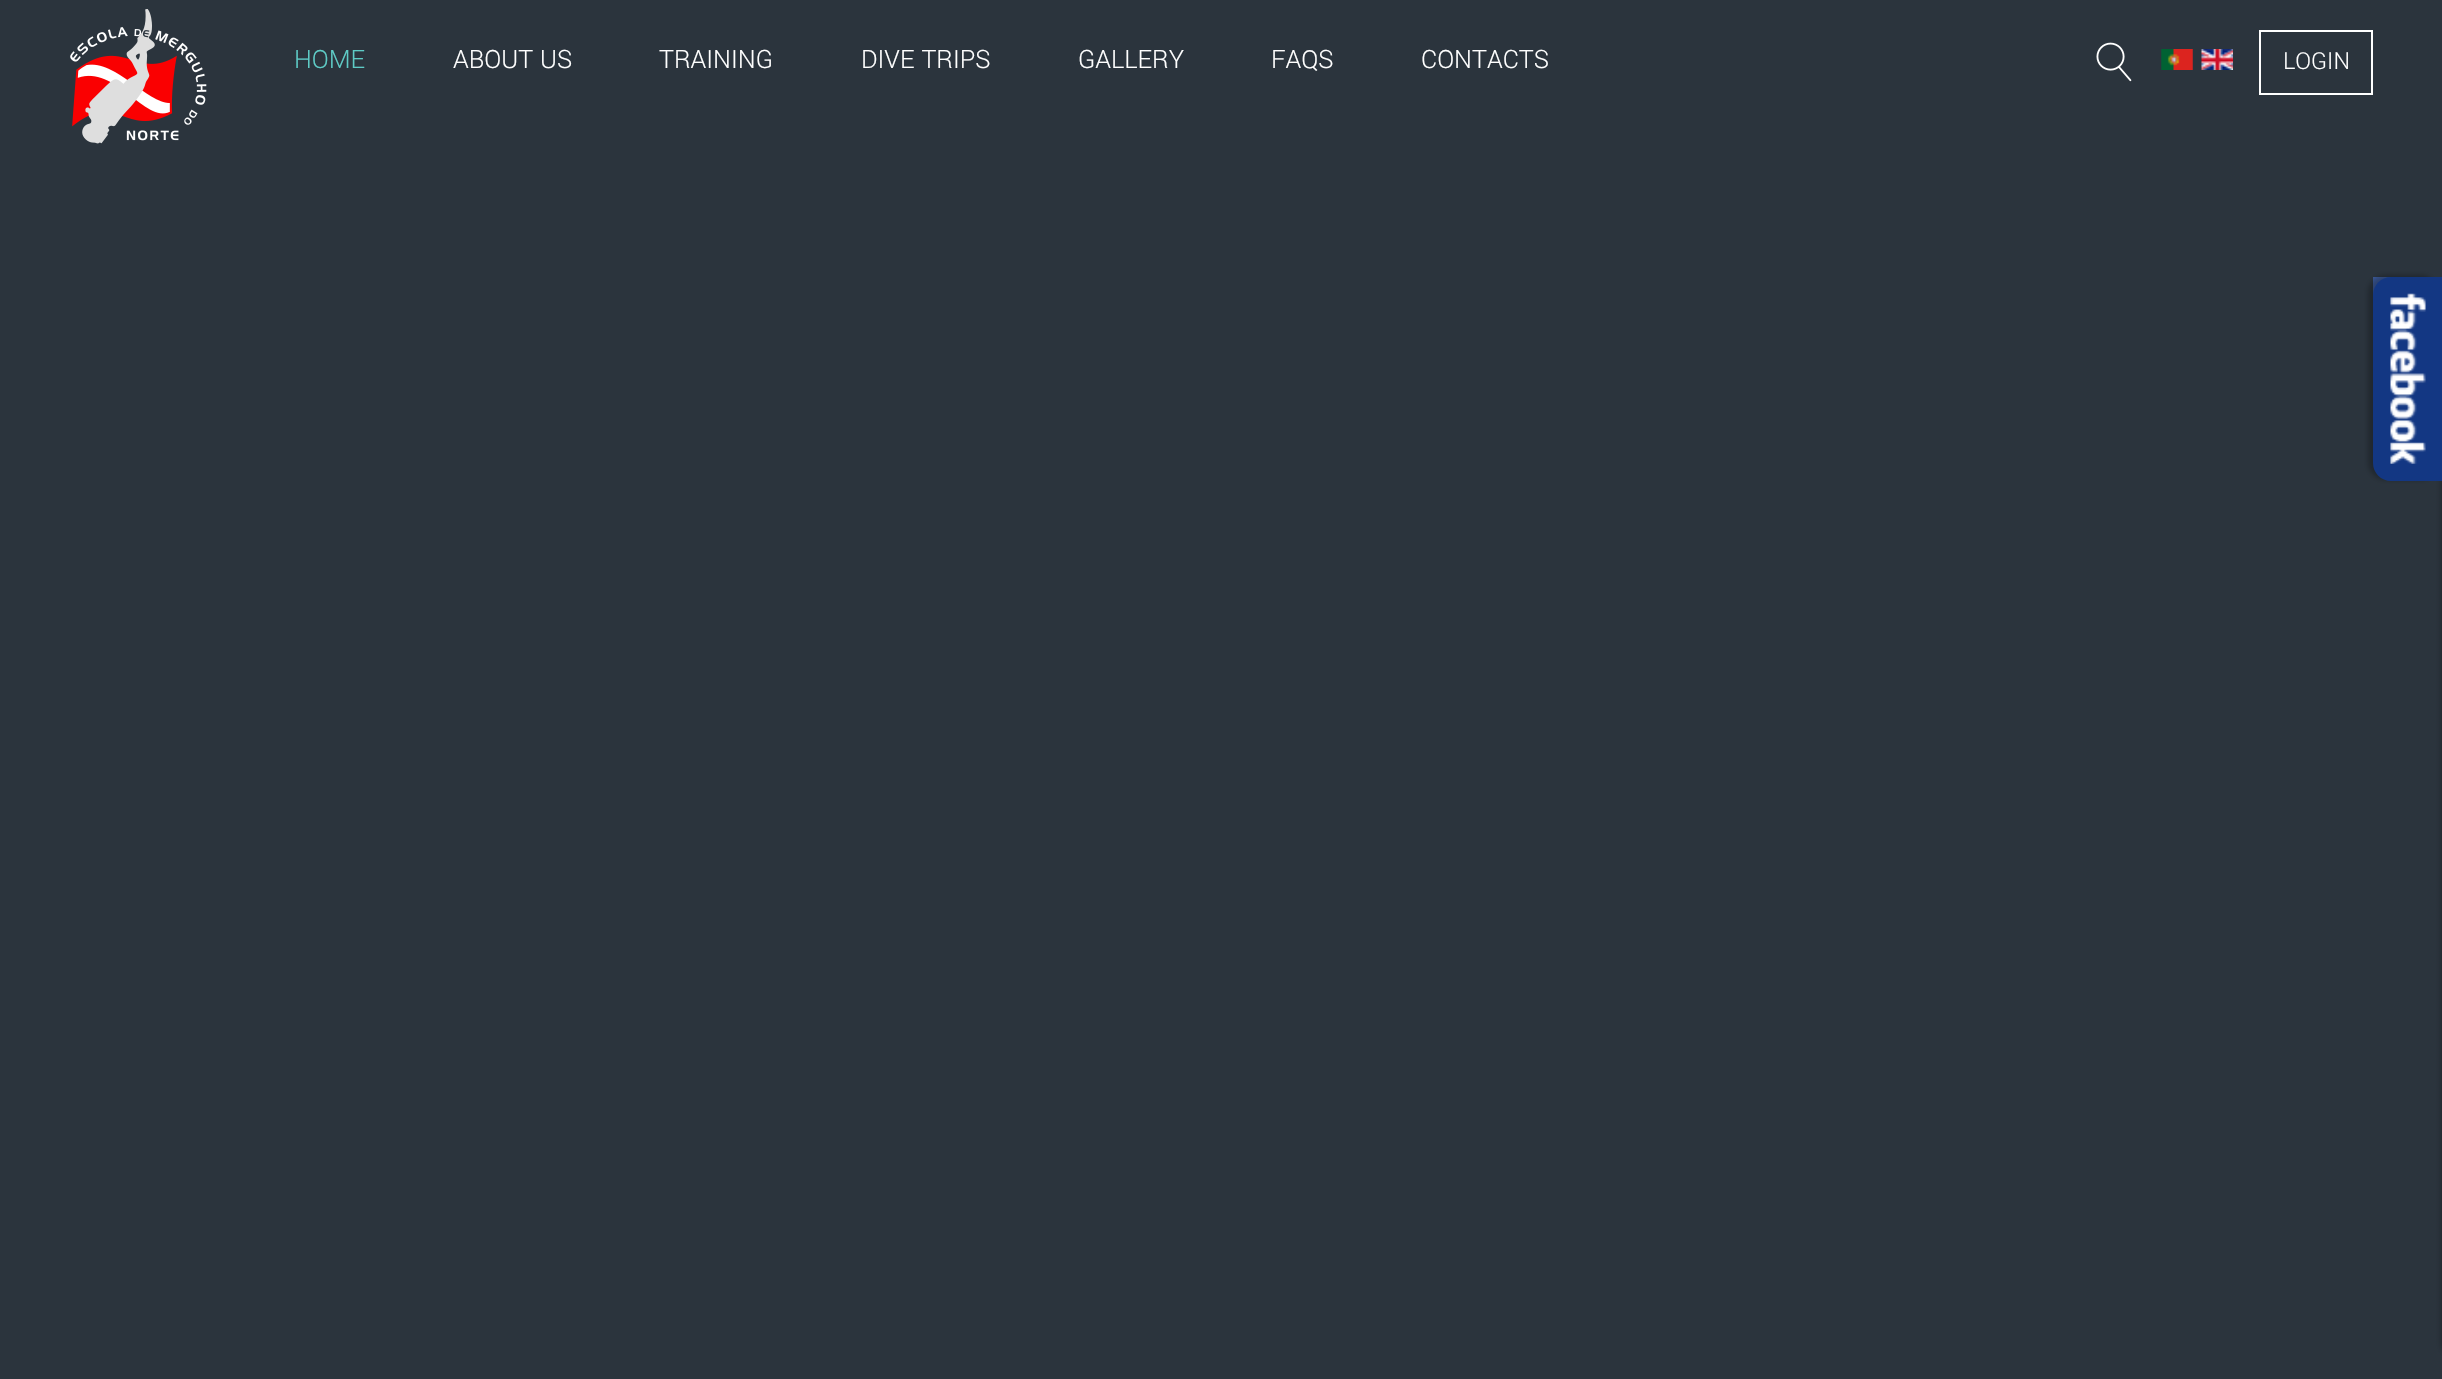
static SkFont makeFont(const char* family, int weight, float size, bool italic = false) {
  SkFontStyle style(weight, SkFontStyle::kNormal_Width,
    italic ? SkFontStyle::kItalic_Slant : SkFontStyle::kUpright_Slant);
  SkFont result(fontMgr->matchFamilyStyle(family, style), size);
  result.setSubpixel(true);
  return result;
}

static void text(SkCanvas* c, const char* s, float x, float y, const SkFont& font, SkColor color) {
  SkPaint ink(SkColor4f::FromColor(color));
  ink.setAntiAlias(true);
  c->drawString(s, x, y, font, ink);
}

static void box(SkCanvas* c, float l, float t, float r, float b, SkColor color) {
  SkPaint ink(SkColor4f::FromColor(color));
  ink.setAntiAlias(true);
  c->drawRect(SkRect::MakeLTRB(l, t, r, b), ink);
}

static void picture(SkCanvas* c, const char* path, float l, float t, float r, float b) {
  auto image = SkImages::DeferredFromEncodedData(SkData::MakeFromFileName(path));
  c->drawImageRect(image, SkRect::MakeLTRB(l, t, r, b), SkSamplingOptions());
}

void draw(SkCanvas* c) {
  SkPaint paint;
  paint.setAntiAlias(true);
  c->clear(0xff2b343d);
  picture(c, "img_01.png", 70, 9, 207, 144);
  SkFont face1 = makeFont("Yantramanav", 300, 28);
  text(c, "HOME", 294, 68, face1, 0xff5ecbc6);
  text(c, "ABOUT US", 453, 68, face1, 0xffffffff);
  text(c, "TRAINING", 659, 68, face1, 0xffffffff);
  text(c, "DIVE TRIPS", 861, 68, face1, 0xffffffff);
  text(c, "GALLERY", 1078, 68, face1, 0xffffffff);
  text(c, "FAQS", 1271, 68, face1, 0xffffffff);
  text(c, "CONTACTS", 1421, 68, face1, 0xffffffff);
  picture(c, "img_02.png", 2096, 42, 2132, 82);
  picture(c, "img_03.png", 2161, 49, 2193, 70);
  picture(c, "img_04.png", 2201, 49, 2233, 70);
  paint.setStyle(SkPaint::kStroke_Style);
  paint.setStrokeWidth(2);
  paint.setColor(0xffffffff);
  c->drawRect(SkRect::MakeLTRB(2260, 31, 2372, 94), paint);
  SkFont face2 = makeFont("Yantramanav", 300, 26);
  text(c, "LOGIN", 2283, 69, face2, 0xffffffff);
  paint.setStyle(SkPaint::kFill_Style);
  paint.setColor(0x80000000);
  paint.setMaskFilter(SkMaskFilter::MakeBlur(kNormal_SkBlurStyle, 3.5f));
  c->drawRoundRect(SkRect::MakeLTRB(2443, 277, 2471, 1356), 18, 18, paint);
  paint.setMaskFilter(nullptr);
  box(c, 2373, 277, 2391, 295, 0xff3b5998);
  paint.setColor(0x40000000);
  paint.setMaskFilter(SkMaskFilter::MakeBlur(kNormal_SkBlurStyle, 2.5f));
  c->drawRoundRect(SkRect::MakeLTRB(2368, 275, 2438, 480), 18, 18, paint);
  paint.setMaskFilter(nullptr);
  paint.setColor(0xff133783);
  c->drawPath(SkPathBuilder().moveTo(2391, 277).lineTo(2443, 277).lineTo(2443, 481).lineTo(2391, 481).cubicTo(2381, 481, 2373, 473, 2373, 463).lineTo(2373, 295).cubicTo(2373, 285, 2381, 277, 2391, 277).close().detach(), paint);
  picture(c, "img_05.png", 2390, 293, 2426, 464);
}
